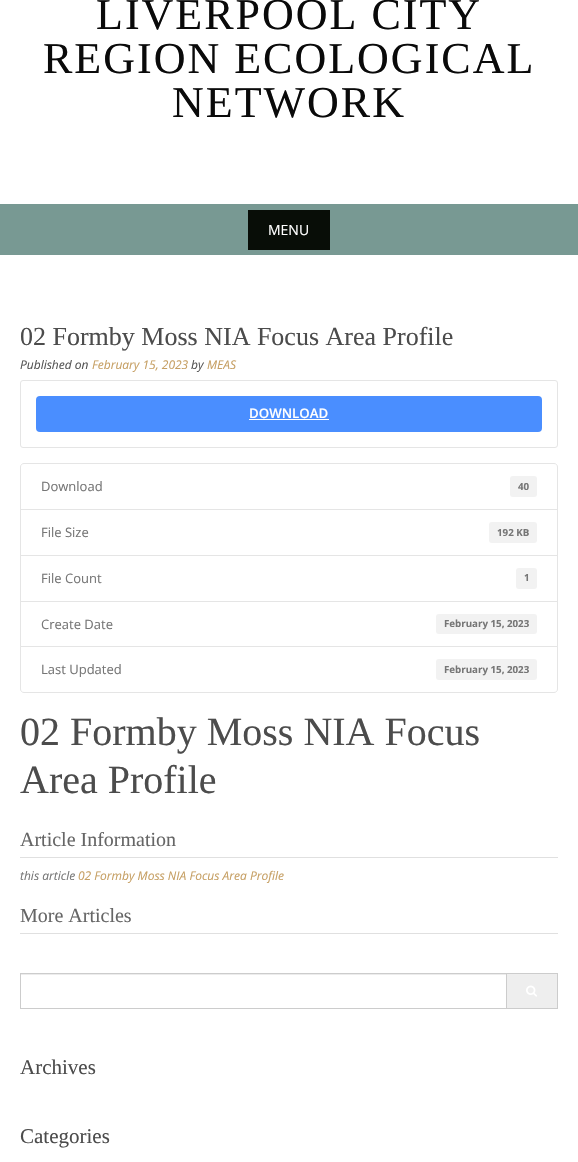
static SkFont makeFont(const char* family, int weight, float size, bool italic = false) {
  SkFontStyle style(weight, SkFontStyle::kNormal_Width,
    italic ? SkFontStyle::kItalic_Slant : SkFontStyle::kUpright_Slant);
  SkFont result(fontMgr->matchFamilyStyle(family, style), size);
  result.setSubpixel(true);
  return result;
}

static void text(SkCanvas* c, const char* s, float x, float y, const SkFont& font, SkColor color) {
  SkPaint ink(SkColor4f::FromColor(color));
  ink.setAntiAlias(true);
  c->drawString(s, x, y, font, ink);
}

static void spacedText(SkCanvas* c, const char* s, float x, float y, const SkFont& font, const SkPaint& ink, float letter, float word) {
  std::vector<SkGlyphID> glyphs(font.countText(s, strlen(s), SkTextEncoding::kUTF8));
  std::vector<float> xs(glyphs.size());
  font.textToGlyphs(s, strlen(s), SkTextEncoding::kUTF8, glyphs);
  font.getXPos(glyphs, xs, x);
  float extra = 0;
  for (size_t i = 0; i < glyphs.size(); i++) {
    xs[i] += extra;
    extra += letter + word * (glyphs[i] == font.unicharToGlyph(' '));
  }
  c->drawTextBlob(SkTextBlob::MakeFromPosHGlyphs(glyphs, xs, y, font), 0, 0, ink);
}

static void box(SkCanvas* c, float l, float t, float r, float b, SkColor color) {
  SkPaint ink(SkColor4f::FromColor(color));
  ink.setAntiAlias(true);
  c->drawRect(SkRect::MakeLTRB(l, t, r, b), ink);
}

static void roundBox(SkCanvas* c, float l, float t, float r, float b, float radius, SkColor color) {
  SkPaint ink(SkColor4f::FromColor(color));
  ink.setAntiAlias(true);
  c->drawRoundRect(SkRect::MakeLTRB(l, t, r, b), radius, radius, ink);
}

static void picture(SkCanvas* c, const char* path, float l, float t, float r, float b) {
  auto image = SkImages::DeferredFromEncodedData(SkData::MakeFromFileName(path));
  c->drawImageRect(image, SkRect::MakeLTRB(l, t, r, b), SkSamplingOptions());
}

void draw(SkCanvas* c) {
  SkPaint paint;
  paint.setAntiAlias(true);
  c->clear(0xff789993);
  box(c, 0, 0, 578, 204, 0xffffffff);
  SkFont face1 = makeFont("Liberation Serif", 400, 44);
  paint.setColor(0xff0a0a0a);
  spacedText(c, "LIVERPOOL CITY", 96, 29, face1, paint, 2, 0);
  spacedText(c, "REGION ECOLOGICAL", 43, 73, face1, paint, 2, 0);
  spacedText(c, "NETWORK", 172, 117, face1, paint, 2, 0);
  box(c, 248, 210, 330, 250, 0xff080d07);
  SkFont face2 = makeFont("Open Sans", 400, 14);
  text(c, "MENU", 268, 235, face2, 0xffffffff);
  box(c, 0, 255, 578, 1162, 0xffffffff);
  SkFont face3 = makeFont("Liberation Serif", 400, 26);
  text(c, "02 Formby Moss NIA Focus Area Profile", 20, 345, face3, 0xff4c4c4c);
  SkFont face4 = makeFont("Open Sans", 400, 12, true);
  text(c, "Published on", 20, 369, face4, 0xff545454);
  text(c, "February 15, 2023", 92, 369, face4, 0xffc69f63);
  text(c, "by", 191, 369, face4, 0xff545454);
  text(c, "MEAS", 207, 369, face4, 0xffc69f63);
  paint.setStyle(SkPaint::kStroke_Style);
  paint.setStrokeWidth(1);
  paint.setColor(0xffe5e5e5);
  c->drawRoundRect(SkRect::MakeLTRB(20.5f, 380.5f, 557.5f, 447.5f), 2.5f, 2.5f, paint);
  roundBox(c, 36, 396, 542, 432, 4, 0xff4a8eff);
  SkFont face5 = makeFont("Open Sans", 600, 13.25f);
  text(c, "DOWNLOAD", 249, 418, face5, 0xffffffff);
  box(c, 249, 419, 329, 420, 0xffffffff);
  c->drawPath(SkPathBuilder().moveTo(24, 463.5f).lineTo(554, 463.5f).cubicTo(556, 463.5f, 557.5f, 465, 557.5f, 467).lineTo(557.5f, 509.5f).lineTo(20.5f, 509.5f).lineTo(20.5f, 467).cubicTo(20.5f, 465, 22, 463.5f, 24, 463.5f).close().detach(), paint);
  SkFont face6 = makeFont("Open Sans", 400, 13);
  text(c, "Download", 41, 491, face6, 0xff767676);
  roundBox(c, 510, 476, 537, 497, 3, 0xfff2f2f2);
  SkFont face7 = makeFont("Open Sans", 700, 9.75f);
  text(c, "40", 518, 490, face7, 0xff767676);
  c->drawRect(SkRect::MakeLTRB(20.5f, 509.5f, 557.5f, 555.5f), paint);
  text(c, "File Size", 41, 537, face6, 0xff767676);
  roundBox(c, 489, 522, 537, 543, 3, 0xfff2f2f2);
  text(c, "192 KB", 497, 536, face7, 0xff767676);
  c->drawRect(SkRect::MakeLTRB(20.5f, 555.5f, 557.5f, 601.5f), paint);
  text(c, "File Count", 41, 583, face6, 0xff767676);
  roundBox(c, 516, 568, 537, 589, 3, 0xfff2f2f2);
  text(c, "1", 524, 581, face7, 0xff767676);
  c->drawRect(SkRect::MakeLTRB(20.5f, 601.5f, 557.5f, 646.5f), paint);
  text(c, "Create Date", 41, 629, face6, 0xff767676);
  roundBox(c, 436, 614, 537, 634, 3, 0xfff2f2f2);
  text(c, "February 15, 2023", 444, 627, face7, 0xff767676);
  paint.setStyle(SkPaint::kFill_Style);
  paint.setColor(0xffffffff);
  c->drawPath(SkPathBuilder().moveTo(20.5f, 646.5f).lineTo(557.5f, 646.5f).lineTo(557.5f, 689).cubicTo(557.5f, 691, 556, 692.5f, 554, 692.5f).lineTo(24, 692.5f).cubicTo(22, 692.5f, 20.5f, 691, 20.5f, 689).close().detach(), paint);
  paint.setStyle(SkPaint::kStroke_Style);
  paint.setColor(0xffe5e5e5);
  c->drawPath(SkPathBuilder().moveTo(20.5f, 646.5f).lineTo(557.5f, 646.5f).lineTo(557.5f, 689).cubicTo(557.5f, 691, 556, 692.5f, 554, 692.5f).lineTo(24, 692.5f).cubicTo(22, 692.5f, 20.5f, 691, 20.5f, 689).close().detach(), paint);
  text(c, "Last Updated", 41, 674, face6, 0xff767676);
  roundBox(c, 436, 659, 537, 680, 3, 0xfff2f2f2);
  text(c, "February 15, 2023", 444, 673, face7, 0xff767676);
  SkFont face8 = makeFont("Liberation Serif", 400, 40);
  text(c, "02 Formby Moss NIA Focus", 20, 745, face8, 0xff4c4c4c);
  text(c, "Area Profile", 20, 793, face8, 0xff4c4c4c);
  box(c, 20, 857, 558, 858, 0xffe0e0e0);
  SkFont face9 = makeFont("Liberation Serif", 400, 20);
  text(c, "Article Information", 20, 846, face9, 0xff666666);
  text(c, "this article", 20, 880, face4, 0xff767676);
  text(c, "02 Formby Moss NIA Focus Area Profile", 78, 880, face4, 0xffc69f63);
  box(c, 20, 933, 558, 934, 0xffe0e0e0);
  text(c, "More Articles", 20, 922, face9, 0xff666666);
  box(c, 507, 974, 557, 1008, 0xffeeeeee);
  paint.setColor(0xffcccccc);
  c->drawRect(SkRect::MakeLTRB(505.5f, 973.5f, 557.5f, 1008.5f), paint);
  box(c, 505, 975, 506, 1008, 0xffffffff);
  box(c, 21, 974, 506, 975, 0xffececec);
  c->drawRect(SkRect::MakeLTRB(20.5f, 973.5f, 506.5f, 1008.5f), paint);
  picture(c, "img_01.png", 526, 985, 537, 997);
  SkFont face10 = makeFont("Liberation Serif", 400, 21);
  text(c, "Archives", 20, 1074, face10, 0xff4c4c4c);
  text(c, "Categories", 20, 1143, face10, 0xff4c4c4c);
}
